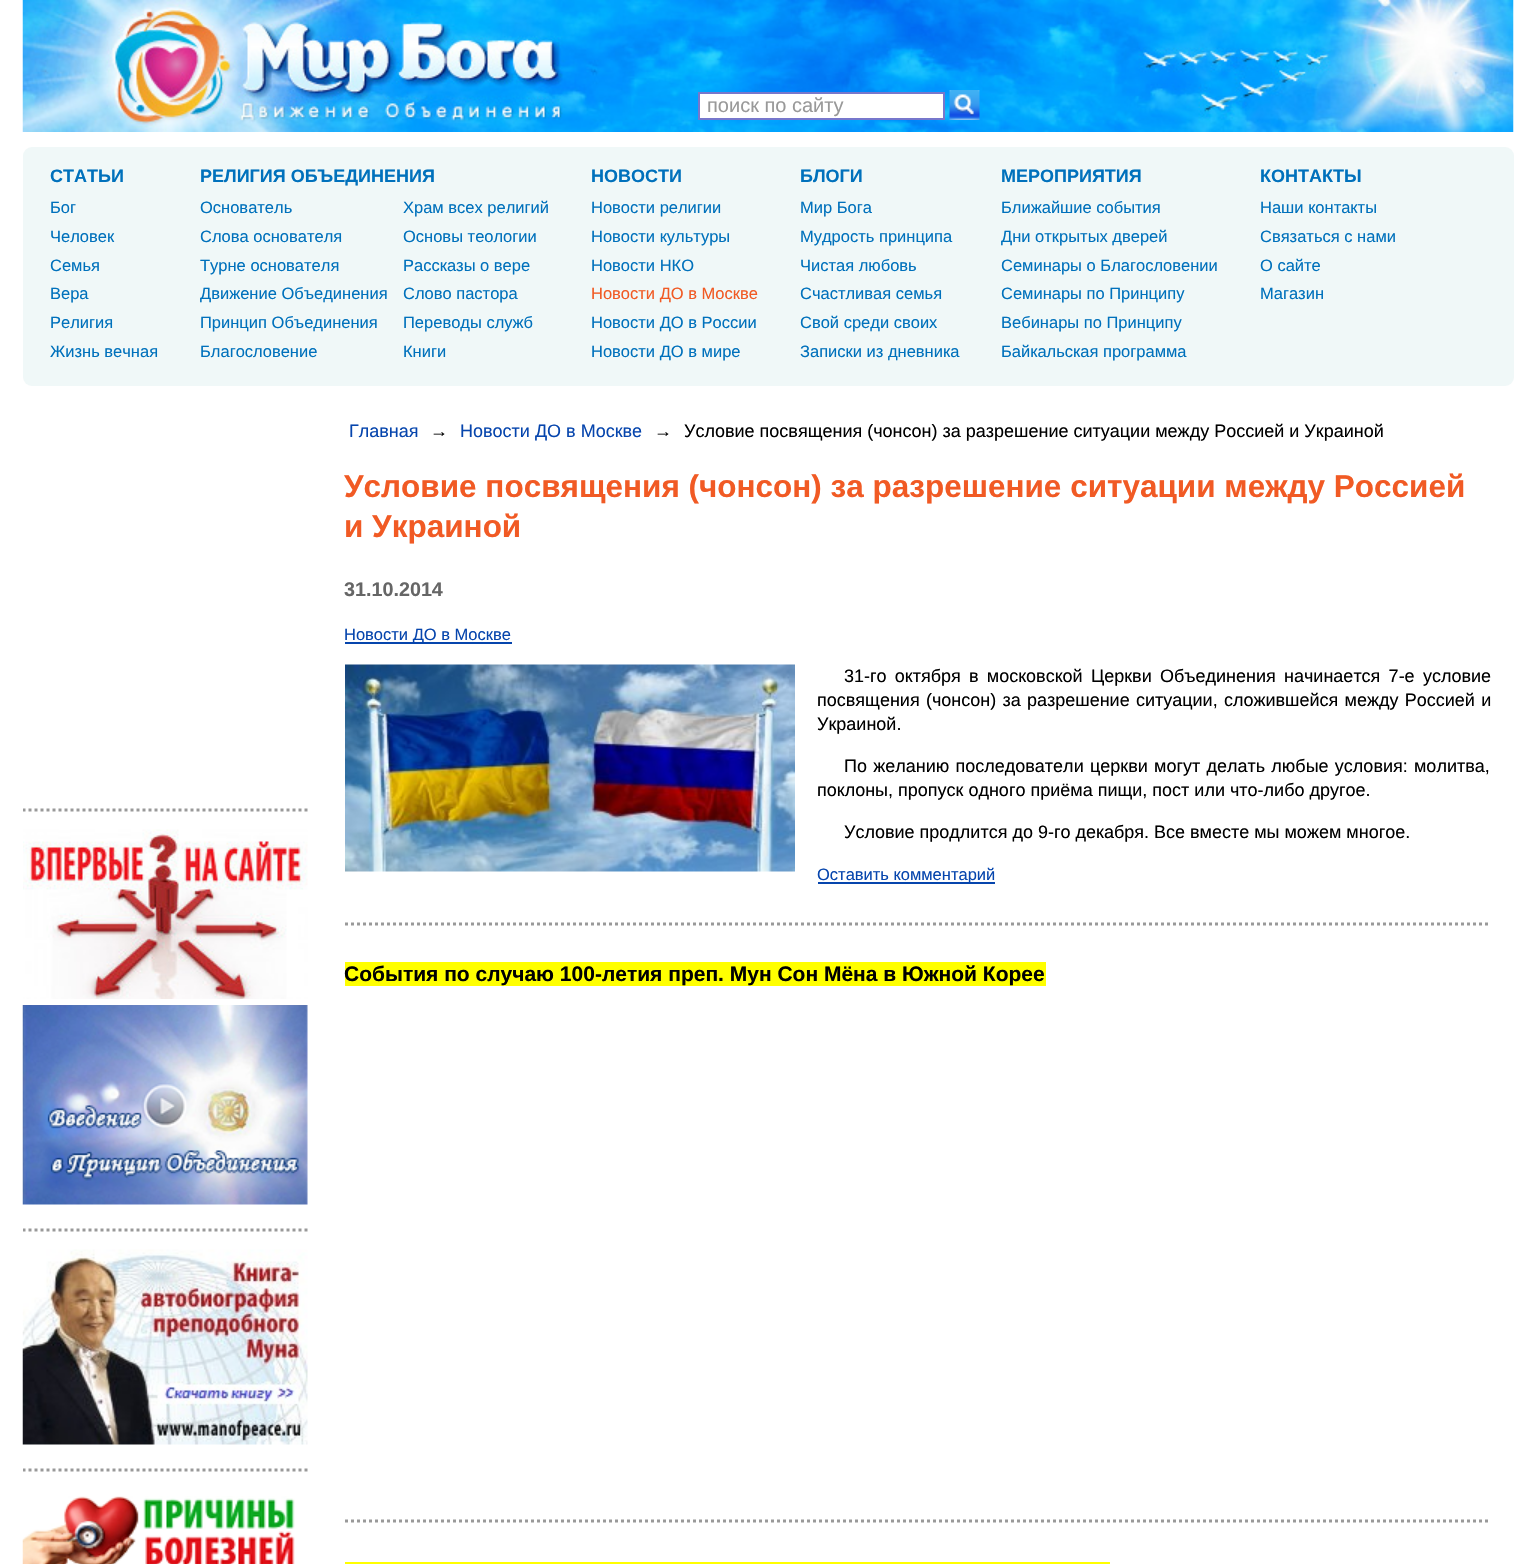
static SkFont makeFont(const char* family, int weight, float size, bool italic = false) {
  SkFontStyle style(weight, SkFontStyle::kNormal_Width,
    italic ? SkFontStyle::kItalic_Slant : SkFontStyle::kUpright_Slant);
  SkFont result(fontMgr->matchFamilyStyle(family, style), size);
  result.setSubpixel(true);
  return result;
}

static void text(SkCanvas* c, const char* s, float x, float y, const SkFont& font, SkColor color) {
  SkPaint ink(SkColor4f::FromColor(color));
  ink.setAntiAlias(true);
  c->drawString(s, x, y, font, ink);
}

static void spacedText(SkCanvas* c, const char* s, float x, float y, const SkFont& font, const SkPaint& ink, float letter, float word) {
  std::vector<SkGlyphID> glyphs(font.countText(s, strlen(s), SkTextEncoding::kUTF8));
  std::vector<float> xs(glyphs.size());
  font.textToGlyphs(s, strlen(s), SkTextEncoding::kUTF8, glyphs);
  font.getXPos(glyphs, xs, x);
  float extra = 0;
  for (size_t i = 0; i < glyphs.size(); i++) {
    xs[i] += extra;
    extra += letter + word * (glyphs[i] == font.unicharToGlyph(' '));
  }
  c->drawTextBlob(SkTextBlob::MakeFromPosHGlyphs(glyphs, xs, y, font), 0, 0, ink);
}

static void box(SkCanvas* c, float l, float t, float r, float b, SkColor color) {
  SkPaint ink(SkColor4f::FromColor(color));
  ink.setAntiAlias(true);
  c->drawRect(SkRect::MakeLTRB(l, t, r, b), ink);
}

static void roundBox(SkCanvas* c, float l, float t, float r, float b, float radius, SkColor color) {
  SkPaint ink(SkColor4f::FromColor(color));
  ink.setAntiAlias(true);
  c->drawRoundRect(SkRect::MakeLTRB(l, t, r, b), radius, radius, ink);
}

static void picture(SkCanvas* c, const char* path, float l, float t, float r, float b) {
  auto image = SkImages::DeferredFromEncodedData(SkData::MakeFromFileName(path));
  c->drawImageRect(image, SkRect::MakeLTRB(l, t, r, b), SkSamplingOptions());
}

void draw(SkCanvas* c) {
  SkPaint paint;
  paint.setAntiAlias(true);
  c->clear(0xffffffff);
  picture(c, "img_01.png", 22, 0, 1514, 132);
  paint.setColor(0xffffffff);
  c->drawRect(SkRect::MakeLTRB(699, 93, 944, 119), paint);
  paint.setStyle(SkPaint::kStroke_Style);
  paint.setStrokeWidth(2);
  paint.setColor(0xff7777cc);
  c->drawRect(SkRect::MakeLTRB(699, 93, 944, 119), paint);
  SkFont face1 = makeFont("Liberation Sans", 400, 20);
  text(c, "поиск по сайту", 707, 112, face1, 0xff999999);
  picture(c, "img_02.png", 949, 90, 980, 120);
  roundBox(c, 23, 147, 1514, 386, 9, 0xfff0f8f8);
  SkFont face2 = makeFont("Liberation Sans", 700, 18);
  text(c, "СТАТЬИ", 50, 182, face2, 0xff0071bc);
  SkFont face3 = makeFont("Liberation Sans", 400, 16.5f);
  text(c, "Бог", 50, 213, face3, 0xff0071bc);
  text(c, "Человек", 50, 242, face3, 0xff0071bc);
  text(c, "Cемья", 50, 271, face3, 0xff0071bc);
  text(c, "Вера", 50, 299, face3, 0xff0071bc);
  text(c, "Религия", 50, 328, face3, 0xff0071bc);
  text(c, "Жизнь вечная", 50, 357, face3, 0xff0071bc);
  text(c, "РЕЛИГИЯ ОБЪЕДИНЕНИЯ", 200, 182, face2, 0xff0071bc);
  text(c, "Основатель", 200, 213, face3, 0xff0071bc);
  text(c, "Слова основателя", 200, 242, face3, 0xff0071bc);
  text(c, "Турне основателя", 200, 271, face3, 0xff0071bc);
  text(c, "Движение Объединения", 200, 299, face3, 0xff0071bc);
  text(c, "Принцип Объединения", 200, 328, face3, 0xff0071bc);
  text(c, "Благословение", 200, 357, face3, 0xff0071bc);
  text(c, "Храм всех религий", 403, 213, face3, 0xff0071bc);
  text(c, "Основы теологии", 403, 242, face3, 0xff0071bc);
  text(c, "Рассказы о вере", 403, 271, face3, 0xff0071bc);
  text(c, "Слово пастора", 403, 299, face3, 0xff0071bc);
  text(c, "Переводы служб", 403, 328, face3, 0xff0071bc);
  text(c, "Книги", 403, 357, face3, 0xff0071bc);
  text(c, "НОВОСТИ", 591, 182, face2, 0xff0071bc);
  text(c, "Новости религии", 591, 213, face3, 0xff0071bc);
  text(c, "Новости культуры", 591, 242, face3, 0xff0071bc);
  text(c, "Новости НКО", 591, 271, face3, 0xff0071bc);
  text(c, "Новости ДО в Москве", 591, 299, face3, 0xfff15a24);
  text(c, "Новости ДО в России", 591, 328, face3, 0xff0071bc);
  text(c, "Новости ДО в мире", 591, 357, face3, 0xff0071bc);
  text(c, "БЛОГИ", 800, 182, face2, 0xff0071bc);
  text(c, "Мир Бога", 800, 213, face3, 0xff0071bc);
  text(c, "Мудрость принципа", 800, 242, face3, 0xff0071bc);
  text(c, "Чистая любовь", 800, 271, face3, 0xff0071bc);
  text(c, "Счастливая семья", 800, 299, face3, 0xff0071bc);
  text(c, "Свой среди своих", 800, 328, face3, 0xff0071bc);
  text(c, "Записки из дневника", 800, 357, face3, 0xff0071bc);
  text(c, "МЕРОПРИЯТИЯ", 1001, 182, face2, 0xff0071bc);
  text(c, "Ближайшие события", 1001, 213, face3, 0xff0071bc);
  text(c, "Дни открытых дверей", 1001, 242, face3, 0xff0071bc);
  text(c, "Семинары о Благословении", 1001, 271, face3, 0xff0071bc);
  text(c, "Семинары по Принципу", 1001, 299, face3, 0xff0071bc);
  text(c, "Вебинары по Принципу", 1001, 328, face3, 0xff0071bc);
  text(c, "Байкальская программа", 1001, 357, face3, 0xff0071bc);
  text(c, "КОНТАКТЫ", 1260, 182, face2, 0xff0071bc);
  text(c, "Наши контакты", 1260, 213, face3, 0xff0071bc);
  text(c, "Связаться с нами", 1260, 242, face3, 0xff0071bc);
  text(c, "О сайте", 1260, 271, face3, 0xff0071bc);
  text(c, "Магазин", 1260, 299, face3, 0xff0071bc);
  SkFont face4 = makeFont("Liberation Sans", 400, 18);
  text(c, "Главная", 349, 437, face4, 0xff0645ad);
  SkFont face5 = makeFont("Liberation Serif", 400, 18);
  text(c, "→", 430, 437, face5, 0xff000000);
  text(c, "Новости ДО в Москве", 460, 437, face4, 0xff0645ad);
  text(c, "→", 654, 437, face5, 0xff000000);
  text(c, "Условие посвящения (чонсон) за разрешение ситуации между Россией и Украиной", 684, 437, face4, 0xff000000);
  SkFont face6 = makeFont("Liberation Sans", 700, 31.5f);
  text(c, "Условие посвящения (чонсон) за разрешение ситуации между Россией", 344, 497, face6, 0xfff15a24);
  text(c, "и Украиной", 344, 537, face6, 0xfff15a24);
  SkFont face7 = makeFont("Liberation Sans", 700, 19.75f);
  text(c, "31.10.2014", 344, 596, face7, 0xff666666);
  box(c, 345, 642, 512, 644, 0xff0645ad);
  text(c, "Новости ДО в Москве", 344, 640, face3, 0xff0645ad);
  picture(c, "img_03.png", 345, 664, 795, 872);
  paint.setStyle(SkPaint::kFill_Style);
  paint.setColor(0xff000000);
  spacedText(c, "31-го октября в московской Церкви Объединения начинается 7-е условие", 844, 682, face4, paint, 0, 3.25f);
  spacedText(c, "посвящения (чонсон) за разрешение ситуации, сложившейся между Россией и", 817, 706, face4, paint, 0, 1.25f);
  text(c, "Украиной.", 817, 730, face4, 0xff000000);
  spacedText(c, "По желанию последователи церкви могут делать любые условия: молитва,", 844, 772, face4, paint, 0, 1.25f);
  text(c, "поклоны, пропуск одного приёма пищи, пост или что-либо другое.", 817, 796, face4, 0xff000000);
  text(c, "Условие продлится до 9-го декабря. Все вместе мы можем многое.", 844, 838, face4, 0xff000000);
  box(c, 818, 882, 995, 884, 0xff0645ad);
  text(c, "Оставить комментарий", 817, 880, face3, 0xff0645ad);
  paint.setStyle(SkPaint::kStroke_Style);
  paint.setStrokeWidth(3);
  paint.setColor(0xff999999);
  paint.setPathEffect(SkDashPathEffect::Make({{3, 3}}, 0));
  c->drawPath(SkPathBuilder().moveTo(345, 924).lineTo(1491, 924).detach(), paint);
  paint.setPathEffect(nullptr);
  box(c, 345, 962, 1046, 986, 0xffffff00);
  SkFont face8 = makeFont("Liberation Sans", 700, 21);
  text(c, "Cобытия по случаю 100-летия преп. Мун Сон Мёна в Южной Корее", 344, 981, face8, 0xff000000);
  paint.setPathEffect(SkDashPathEffect::Make({{3, 3}}, 0));
  c->drawPath(SkPathBuilder().moveTo(345, 1521).lineTo(1491, 1521).detach(), paint);
  paint.setPathEffect(nullptr);
  box(c, 345, 1562, 1110, 1564, 0xffffff00);
  c->save();
  c->clipRect(SkRect::MakeLTRB(23, 0, 1514, 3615));
  paint.setPathEffect(SkDashPathEffect::Make({{3, 3}}, 0));
  c->drawPath(SkPathBuilder().moveTo(22.5f, 810).lineTo(307.5f, 810).detach(), paint);
  paint.setPathEffect(nullptr);
  c->restore();
  picture(c, "img_04.png", 23, 829, 308, 999);
  picture(c, "img_05.png", 22, 1005, 308, 1205);
  c->save();
  c->clipRect(SkRect::MakeLTRB(23, 0, 1514, 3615));
  paint.setPathEffect(SkDashPathEffect::Make({{3, 3}}, 0));
  c->drawPath(SkPathBuilder().moveTo(22.5f, 1230).lineTo(307.5f, 1230).detach(), paint);
  paint.setPathEffect(nullptr);
  c->restore();
  picture(c, "img_06.png", 22, 1249, 308, 1445);
  c->save();
  c->clipRect(SkRect::MakeLTRB(23, 0, 1514, 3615));
  paint.setPathEffect(SkDashPathEffect::Make({{3, 3}}, 0));
  c->drawPath(SkPathBuilder().moveTo(22.5f, 1470).lineTo(307.5f, 1470).detach(), paint);
  paint.setPathEffect(nullptr);
  c->restore();
  picture(c, "img_07.png", 22, 1496, 295, 1564);
}
